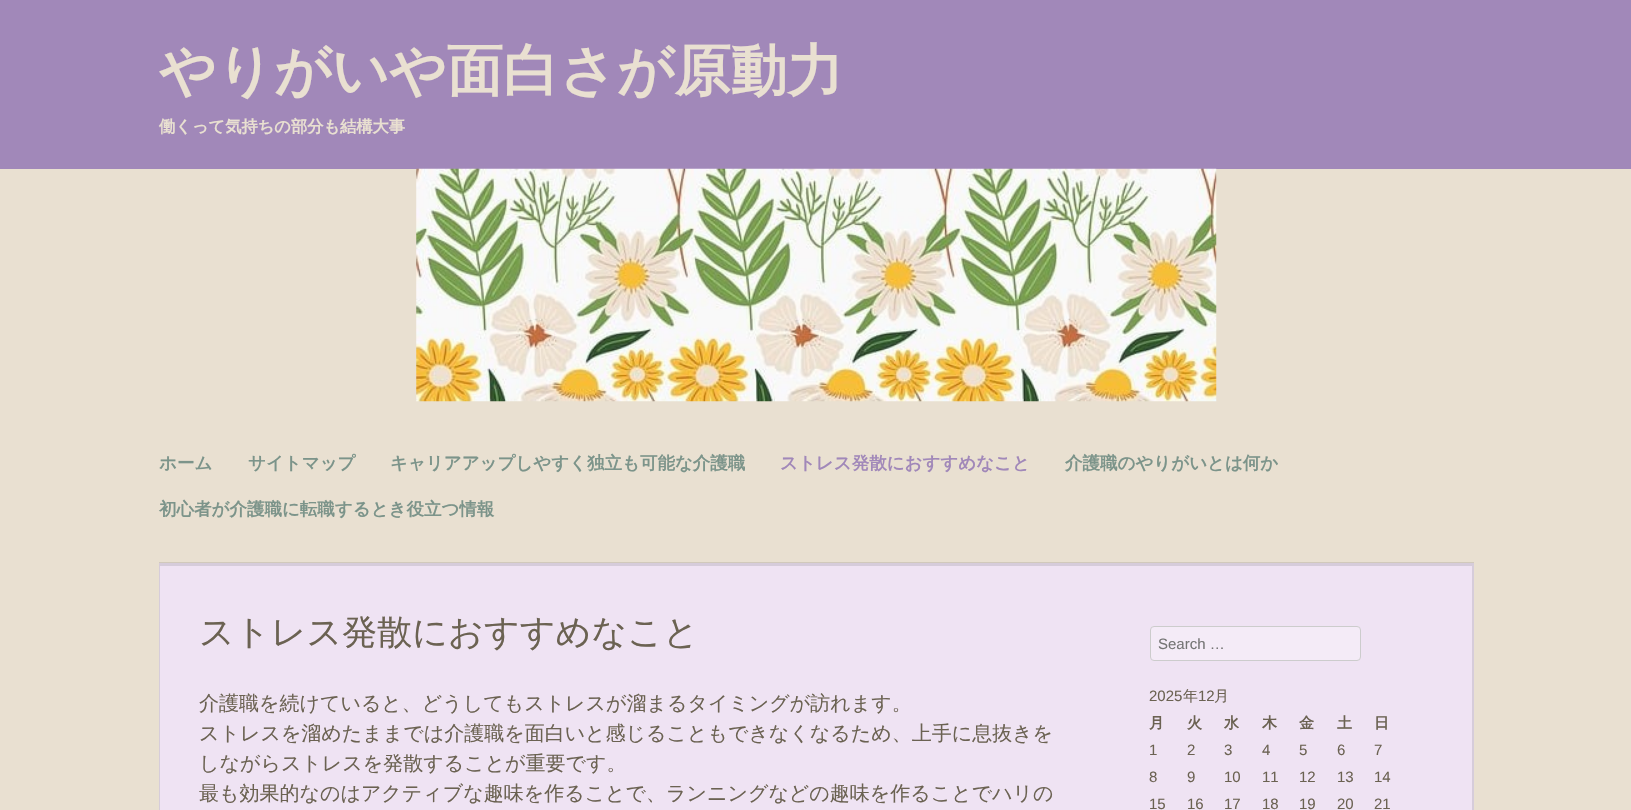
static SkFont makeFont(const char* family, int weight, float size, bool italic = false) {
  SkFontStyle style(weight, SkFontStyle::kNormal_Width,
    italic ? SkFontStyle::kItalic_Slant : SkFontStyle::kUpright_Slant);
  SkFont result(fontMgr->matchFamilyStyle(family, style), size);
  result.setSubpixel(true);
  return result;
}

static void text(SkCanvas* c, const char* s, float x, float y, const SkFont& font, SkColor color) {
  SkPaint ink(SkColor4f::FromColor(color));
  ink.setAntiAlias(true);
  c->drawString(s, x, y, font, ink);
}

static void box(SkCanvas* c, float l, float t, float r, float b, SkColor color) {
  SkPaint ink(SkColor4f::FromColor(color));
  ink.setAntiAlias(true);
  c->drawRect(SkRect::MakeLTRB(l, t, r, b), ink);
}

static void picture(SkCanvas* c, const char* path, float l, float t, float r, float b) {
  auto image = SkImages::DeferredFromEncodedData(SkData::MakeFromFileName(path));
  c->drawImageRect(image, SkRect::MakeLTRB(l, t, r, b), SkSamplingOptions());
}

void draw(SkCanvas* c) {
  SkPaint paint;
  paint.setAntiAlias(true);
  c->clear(0xffe9e0d1);
  box(c, 0, 0, 1631, 169, 0xffa188b9);
  SkFont face1 = makeFont("WenQuanYi Zen Hei", 700, 56.25f);
  text(c, "やりがいや面白さが原動力", 159, 90, face1, 0xffe9e0d1);
  SkFont face2 = makeFont("WenQuanYi Zen Hei", 700, 16.25f);
  text(c, "働くって気持ちの部分も結構大事", 159, 132, face2, 0xffe9e0d1);
  picture(c, "img_01.png", 416, 168, 1217, 402);
  SkFont face3 = makeFont("WenQuanYi Zen Hei", 700, 17.5f);
  text(c, "ホーム", 159, 469, face3, 0xff7c948a);
  text(c, "サイトマップ", 248, 469, face3, 0xff7c948a);
  text(c, "キャリアアップしやすく独立も可能な介護職", 390, 469, face3, 0xff7c948a);
  text(c, "ストレス発散におすすめなこと", 780, 469, face3, 0xffa188b9);
  text(c, "介護職のやりがいとは何か", 1065, 469, face3, 0xff7c948a);
  text(c, "初心者が介護職に転職するとき役立つ情報", 159, 515, face3, 0xff7c948a);
  box(c, 159, 563, 1474, 810, 0xffefe3f3);
  paint.setColor(0x1a000000);
  c->drawPath(SkPathBuilder().moveTo(159, 562).lineTo(1474, 562).lineTo(1472, 566).lineTo(160, 566).close().detach(), paint);
  c->drawPath(SkPathBuilder().moveTo(1474, 562).lineTo(1474, 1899).lineTo(1472, 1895).lineTo(1472, 566).close().detach(), paint);
  c->drawPath(SkPathBuilder().moveTo(159, 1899).lineTo(159, 562).lineTo(160, 566).lineTo(160, 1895).close().detach(), paint);
  SkFont face4 = makeFont("WenQuanYi Zen Hei", 500, 35);
  text(c, "ストレス発散におすすめなこと", 199, 644, face4, 0xff6b6252);
  SkFont face5 = makeFont("WenQuanYi Zen Hei", 500, 20);
  text(c, "介護職を続けていると、どうしてもストレスが溜まるタイミングが訪れます。", 199, 710, face5, 0xff6b6252);
  text(c, "ストレスを溜めたままでは介護職を面白いと感じることもできなくなるため、上手に息抜きを", 199, 740, face5, 0xff6b6252);
  text(c, "しながらストレスを発散することが重要です。", 199, 770, face5, 0xff6b6252);
  text(c, "最も効果的なのはアクティブな趣味を作ることで、ランニングなどの趣味を作ることでハリの", 199, 800, face5, 0xff6b6252);
  paint.setColor(0xfff4ebf7);
  c->drawRoundRect(SkRect::MakeLTRB(1150.5f, 626.5f, 1360.5f, 660.5f), 3.5f, 3.5f, paint);
  paint.setStyle(SkPaint::kStroke_Style);
  paint.setStrokeWidth(1);
  paint.setColor(0xffcccccc);
  c->drawRoundRect(SkRect::MakeLTRB(1150.5f, 626.5f, 1360.5f, 660.5f), 3.5f, 3.5f, paint);
  SkFont face6 = makeFont("Liberation Sans", 400, 15);
  text(c, "Search …", 1158, 649, face6, 0xff757575);
  text(c, "2025", 1149, 701, face6, 0xff6b6252);
  SkFont face7 = makeFont("WenQuanYi Zen Hei", 500, 15);
  text(c, "年", 1183, 701, face7, 0xff6b6252);
  text(c, "12", 1198, 701, face6, 0xff6b6252);
  text(c, "月", 1214, 701, face7, 0xff6b6252);
  SkFont face8 = makeFont("WenQuanYi Zen Hei", 700, 15);
  text(c, "月", 1149, 728, face8, 0xff6b6252);
  text(c, "火", 1187, 728, face8, 0xff6b6252);
  text(c, "水", 1224, 728, face8, 0xff6b6252);
  text(c, "木", 1262, 728, face8, 0xff6b6252);
  text(c, "金", 1299, 728, face8, 0xff6b6252);
  text(c, "土", 1337, 728, face8, 0xff6b6252);
  text(c, "日", 1374, 728, face8, 0xff6b6252);
  text(c, "1", 1149, 755, face6, 0xff6b6252);
  text(c, "2", 1187, 755, face6, 0xff6b6252);
  text(c, "3", 1224, 755, face6, 0xff6b6252);
  text(c, "4", 1262, 755, face6, 0xff6b6252);
  text(c, "5", 1299, 755, face6, 0xff6b6252);
  text(c, "6", 1337, 755, face6, 0xff6b6252);
  text(c, "7", 1374, 755, face6, 0xff6b6252);
  text(c, "8", 1149, 782, face6, 0xff6b6252);
  text(c, "9", 1187, 782, face6, 0xff6b6252);
  text(c, "10", 1224, 782, face6, 0xff6b6252);
  text(c, "11", 1262, 782, face6, 0xff6b6252);
  text(c, "12", 1299, 782, face6, 0xff6b6252);
  text(c, "13", 1337, 782, face6, 0xff6b6252);
  text(c, "14", 1374, 782, face6, 0xff6b6252);
  text(c, "15", 1149, 809, face6, 0xff6b6252);
  text(c, "16", 1187, 809, face6, 0xff6b6252);
  text(c, "17", 1224, 809, face6, 0xff6b6252);
  text(c, "18", 1262, 809, face6, 0xff6b6252);
  text(c, "19", 1299, 809, face6, 0xff6b6252);
  text(c, "20", 1337, 809, face6, 0xff6b6252);
  text(c, "21", 1374, 809, face6, 0xff6b6252);
}
